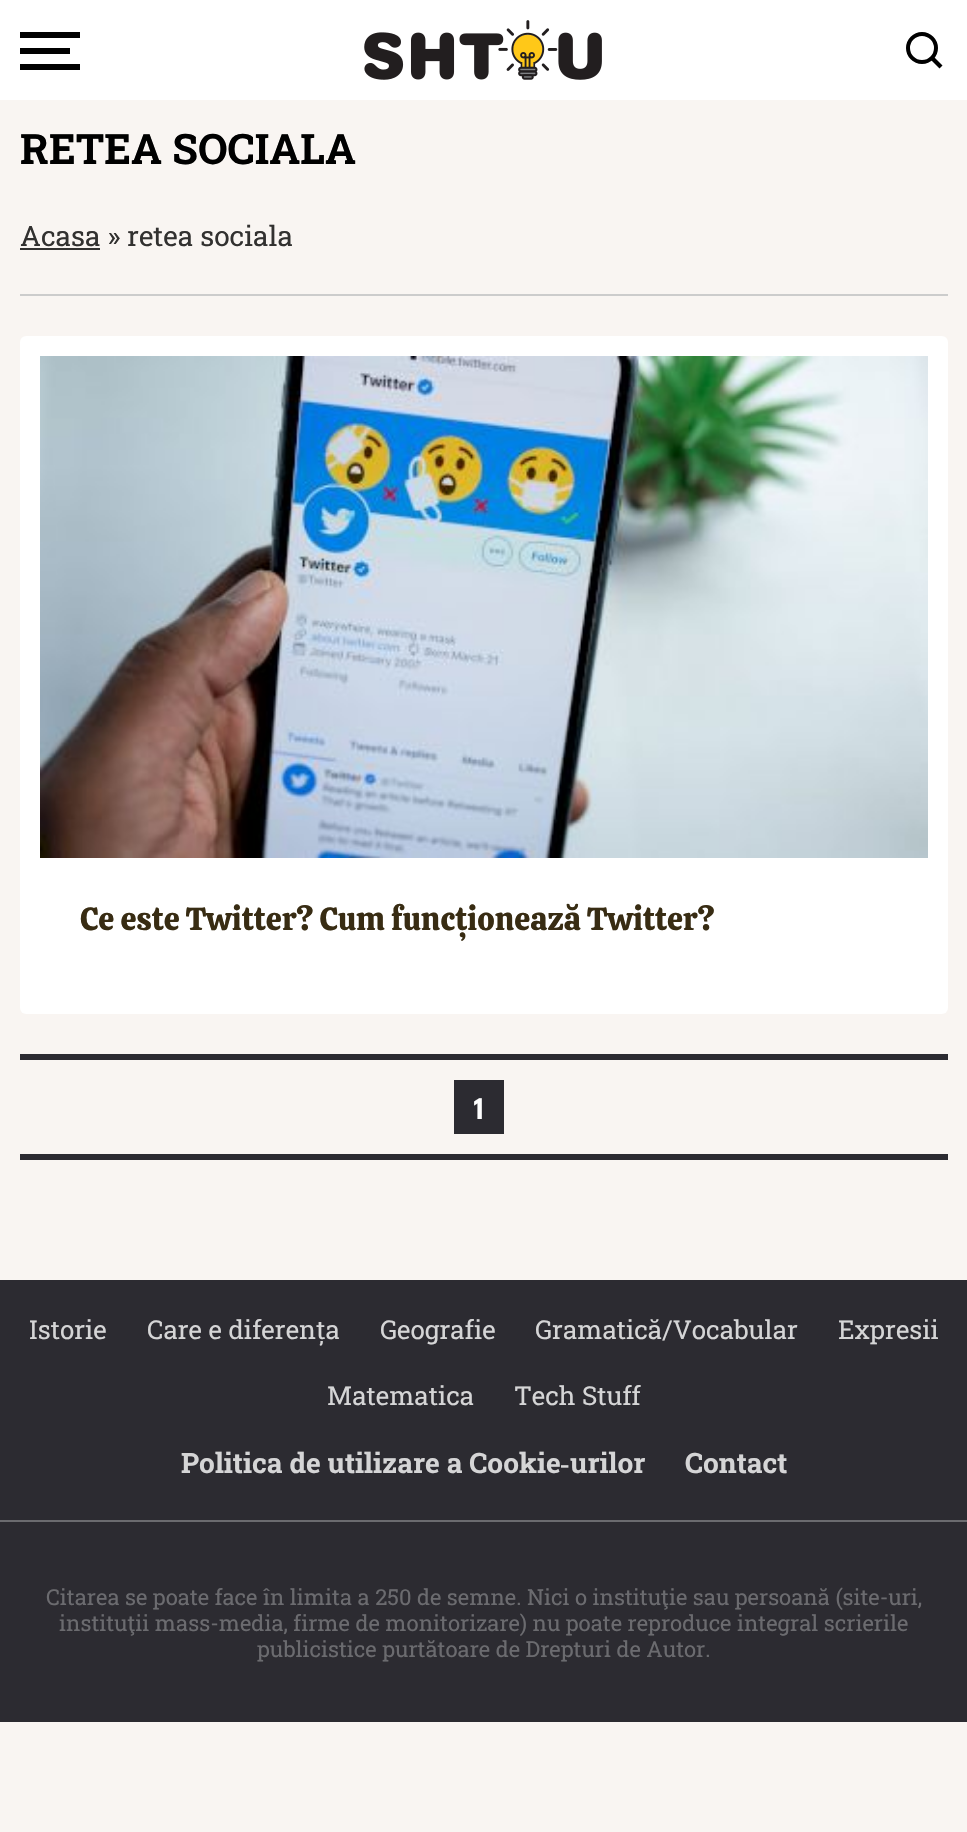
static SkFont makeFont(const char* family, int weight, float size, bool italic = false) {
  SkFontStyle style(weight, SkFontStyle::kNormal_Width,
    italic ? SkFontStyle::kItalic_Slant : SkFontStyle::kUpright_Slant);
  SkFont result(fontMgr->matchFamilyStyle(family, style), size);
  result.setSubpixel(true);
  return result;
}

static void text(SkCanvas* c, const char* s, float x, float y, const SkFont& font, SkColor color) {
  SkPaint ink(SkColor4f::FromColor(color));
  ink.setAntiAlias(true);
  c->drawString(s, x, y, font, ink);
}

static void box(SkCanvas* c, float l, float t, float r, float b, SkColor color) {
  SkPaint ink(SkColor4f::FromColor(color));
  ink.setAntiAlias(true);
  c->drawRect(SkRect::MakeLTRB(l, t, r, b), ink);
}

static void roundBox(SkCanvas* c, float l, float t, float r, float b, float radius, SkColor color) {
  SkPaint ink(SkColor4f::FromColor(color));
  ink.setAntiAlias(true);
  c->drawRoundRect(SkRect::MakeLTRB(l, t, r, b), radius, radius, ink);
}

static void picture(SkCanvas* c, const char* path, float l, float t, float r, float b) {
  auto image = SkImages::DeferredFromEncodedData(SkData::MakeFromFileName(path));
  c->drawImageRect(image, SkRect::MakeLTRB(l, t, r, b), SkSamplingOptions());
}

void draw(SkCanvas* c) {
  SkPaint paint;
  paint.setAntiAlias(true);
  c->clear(0xfff9f5f2);
  box(c, 0, 0, 967, 100, 0xffffffff);
  box(c, 20, 48, 70, 54, 0xff000000);
  box(c, 20, 32, 80, 38, 0xff000000);
  box(c, 20, 64, 80, 70, 0xff000000);
  picture(c, "img_01.png", 364, 20, 602, 80);
  paint.setStyle(SkPaint::kStroke_Style);
  paint.setStrokeWidth(4);
  paint.setColor(0xff000000);
  c->drawCircle(922, 48, 14, paint);
  paint.setStyle(SkPaint::kFill_Style);
  c->drawPath(SkPathBuilder().moveTo(929.5f, 58.5f).lineTo(932.5f, 55.5f).lineTo(942.5f, 65.5f).lineTo(939.5f, 68.5f).close().detach(), paint);
  box(c, 20, 294, 948, 296, 0xffcccccc);
  SkFont face1 = makeFont("Roboto Slab", 700, 42);
  text(c, "RETEA SOCIALA", 20, 164, face1, 0xff000000);
  SkFont face2 = makeFont("Roboto Slab", 400, 28);
  text(c, "Acasa » retea sociala", 20, 246, face2, 0xff323130);
  box(c, 20, 248, 100, 250, 0xff323130);
  roundBox(c, 20, 336, 948, 1014, 6, 0xffffffff);
  picture(c, "img_02.png", 40, 356, 928, 858);
  SkFont face3 = makeFont("Calistoga", 400, 32);
  text(c, "Ce este Twitter? Cum funcționează Twitter?", 80, 930, face3, 0xff382c13);
  box(c, 20, 1054, 948, 1060, 0xff2c2b31);
  box(c, 20, 1154, 948, 1160, 0xff2c2b31);
  box(c, 454, 1080, 504, 1134, 0xff2c2b31);
  SkFont face4 = makeFont("Encode Sans Condensed", 700, 28);
  text(c, "1", 474, 1119, face4, 0xffffffff);
  box(c, 0, 1280, 967, 1722, 0xff2c2b31);
  SkFont face5 = makeFont("Roboto Slab", 400, 26);
  text(c, "Istorie", 29, 1339, face5, 0xffd5d5d6);
  text(c, "Care e diferența", 147, 1339, face5, 0xffd5d5d6);
  text(c, "Geografie", 380, 1339, face5, 0xffd5d5d6);
  text(c, "Gramatică/Vocabular", 535, 1339, face5, 0xffd5d5d6);
  text(c, "Expresii", 838, 1339, face5, 0xffd5d5d6);
  text(c, "Matematica", 327, 1405, face5, 0xffd5d5d6);
  text(c, "Tech Stuff", 514, 1405, face5, 0xffd5d5d6);
  SkFont face6 = makeFont("Roboto Slab", 700, 28);
  text(c, "Politica de utilizare a Cookie", 181, 1473, face6, 0xffd5d5d6);
  SkFont face7 = makeFont("Liberation Serif", 700, 28);
  text(c, "‐", 560, 1473, face7, 0xffd5d5d6);
  text(c, "urilor", 570, 1473, face6, 0xffd5d5d6);
  text(c, "Contact", 685, 1473, face6, 0xffd5d5d6);
  box(c, 0, 1520, 967, 1522, 0xff6b6b6f);
  SkFont face8 = makeFont("Roboto Slab", 400, 22);
  text(c, "Citarea se poate face în limita a 250 de semne. Nici o instituţie sau persoană (site-uri,", 46, 1605, face8, 0xff6b6b6f);
  text(c, "instituţii mass-media, firme de monitorizare) nu poate reproduce integral scrierile", 59, 1631, face8, 0xff6b6b6f);
  text(c, "publicistice purtătoare de Drepturi de Autor.", 257, 1657, face8, 0xff6b6b6f);
}
